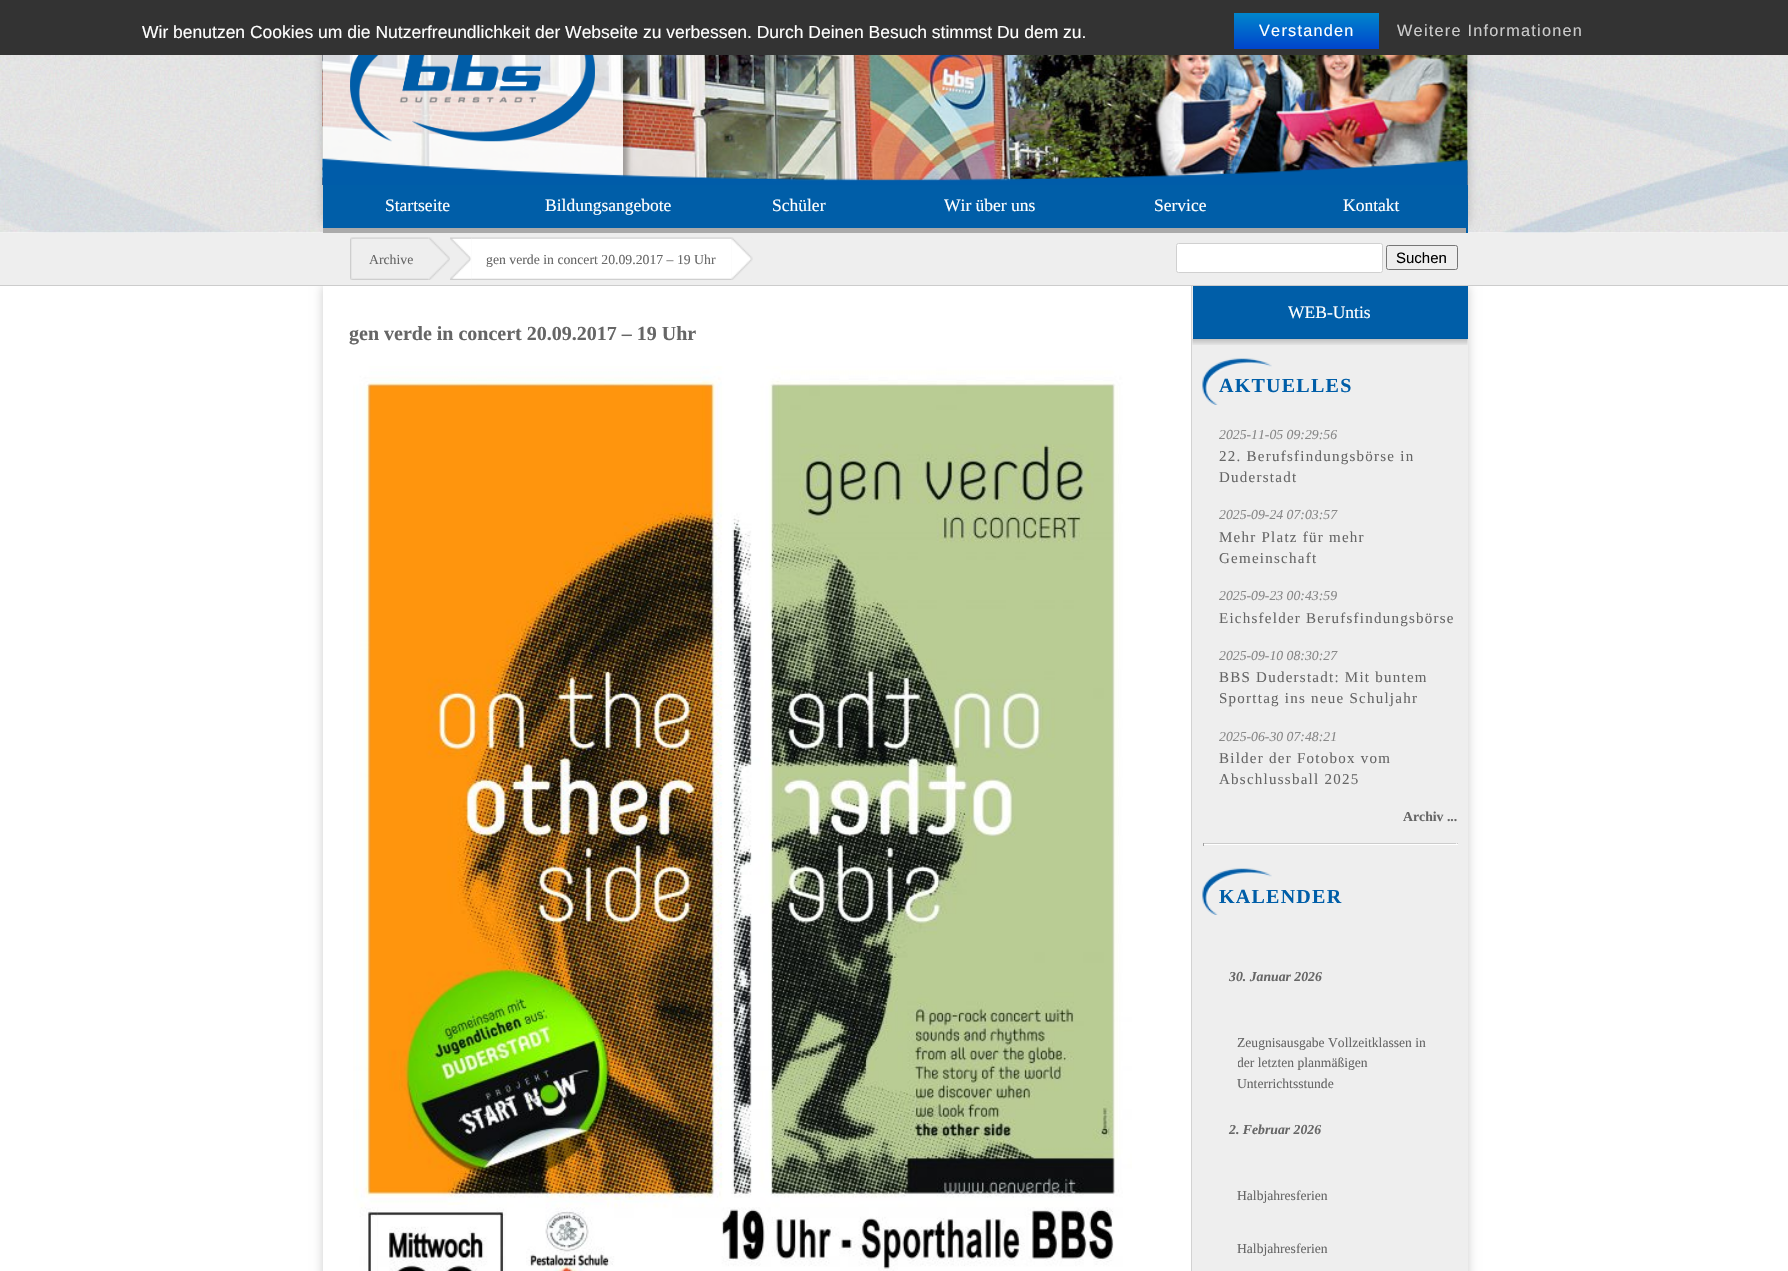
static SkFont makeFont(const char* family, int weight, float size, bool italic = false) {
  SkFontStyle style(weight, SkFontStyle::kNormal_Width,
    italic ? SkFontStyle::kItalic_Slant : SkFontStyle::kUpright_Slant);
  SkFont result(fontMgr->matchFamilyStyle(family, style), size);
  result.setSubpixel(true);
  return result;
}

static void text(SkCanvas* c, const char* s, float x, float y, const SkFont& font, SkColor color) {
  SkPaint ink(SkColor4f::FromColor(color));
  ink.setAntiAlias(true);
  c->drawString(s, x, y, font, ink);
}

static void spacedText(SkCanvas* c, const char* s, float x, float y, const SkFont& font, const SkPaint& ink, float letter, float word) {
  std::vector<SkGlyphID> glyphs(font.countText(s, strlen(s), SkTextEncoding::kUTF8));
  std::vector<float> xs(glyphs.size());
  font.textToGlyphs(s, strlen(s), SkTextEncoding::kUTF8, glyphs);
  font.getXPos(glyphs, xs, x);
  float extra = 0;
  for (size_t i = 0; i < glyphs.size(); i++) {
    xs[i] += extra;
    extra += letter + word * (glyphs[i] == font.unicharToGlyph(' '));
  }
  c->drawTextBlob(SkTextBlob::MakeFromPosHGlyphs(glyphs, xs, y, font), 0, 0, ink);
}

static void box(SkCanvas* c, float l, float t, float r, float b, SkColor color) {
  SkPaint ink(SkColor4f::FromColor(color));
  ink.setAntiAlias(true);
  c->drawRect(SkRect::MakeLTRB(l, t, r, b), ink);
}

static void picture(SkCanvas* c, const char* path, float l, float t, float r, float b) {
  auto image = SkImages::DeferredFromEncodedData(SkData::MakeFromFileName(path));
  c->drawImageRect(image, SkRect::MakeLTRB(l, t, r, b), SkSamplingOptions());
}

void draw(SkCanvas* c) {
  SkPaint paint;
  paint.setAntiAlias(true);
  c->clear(0xffffffff);
  picture(c, "img_01.png", 0, 55, 1788, 233);
  paint.setColor(0x33000000);
  paint.setMaskFilter(SkMaskFilter::MakeBlur(kNormal_SkBlurStyle, 5));
  c->drawRect(SkRect::MakeLTRB(323, -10, 1468, 223), paint);
  paint.setMaskFilter(nullptr);
  box(c, 1467, 55, 1468, 185, 0xffffffff);
  picture(c, "img_03.png", 322, 55, 1468, 185);
  c->save();
  c->clipPath(SkPathBuilder(SkPathFillType::kEvenOdd).moveTo(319, 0).lineTo(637, 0).lineTo(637, 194).lineTo(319, 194).close().moveTo(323, 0).lineTo(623, 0).lineTo(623, 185).lineTo(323, 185).close().detach(), true);
  paint.setColor(0x4d000000);
  paint.setMaskFilter(SkMaskFilter::MakeBlur(kNormal_SkBlurStyle, 2.5f));
  c->drawRect(SkRect::MakeLTRB(328, 0, 628, 185), paint);
  paint.setMaskFilter(nullptr);
  c->restore();
  box(c, 0, 0, 1788, 55, 0xff333333);
  SkFont face1 = makeFont("Liberation Sans", 400, 17.5f);
  text(c, "Wir benutzen Cookies um die Nutzerfreundlichkeit der Webseite zu verbessen. Durch Deinen Besuch stimmst Du dem zu.", 142, 38, face1, 0xffffffff);
  {
    const SkColor colors[] = {0xff0088cc, 0xff0044cc};
    const float stops[] = {0, 1};
    const SkPoint ends[] = {{1306, 12}, {1306, 49}};
    paint.setShader(SkGradientShader::MakeLinear(ends, colors, stops, 2, SkTileMode::kClamp));
    paint.setAlpha(255);
  }
  c->drawRect(SkRect::MakeLTRB(1234, 13, 1379, 49), paint);
  SkFont face2 = makeFont("Liberation Sans", 400, 16.25f);
  paint.setShader(nullptr);
  paint.setColor(0xffffffff);
  spacedText(c, "Verstanden", 1259, 36, face2, paint, 1.25f, 0);
  paint.setColor(0xffcccccc);
  spacedText(c, "Weitere Informationen", 1397, 36, face2, paint, 1.25f, 0);
  box(c, 323, 55, 623, 177, 0xccffffff);
  picture(c, "img_02.png", 350, 55, 595, 142);
  picture(c, "img_04.png", 322, 158, 1468, 185);
  box(c, 323, 185, 1468, 233, 0xff005ea8);
  box(c, 323, 228, 1466, 233, 0xffaaaaaa);
  SkFont face3 = makeFont("Liberation Serif", 400, 17.5f);
  text(c, "Startseite", 385, 211, face3, 0xffffffff);
  text(c, "Bildungsangebote", 545, 211, face3, 0xffffffff);
  text(c, "Schüler", 772, 211, face3, 0xffffffff);
  text(c, "Wir über uns", 944, 211, face3, 0xffffffff);
  text(c, "Service", 1154, 211, face3, 0xffffffff);
  text(c, "Kontakt", 1343, 211, face3, 0xffffffff);
  paint.setColor(0x33000000);
  paint.setMaskFilter(SkMaskFilter::MakeBlur(kNormal_SkBlurStyle, 5));
  c->drawRect(SkRect::MakeLTRB(323, 286, 1468, 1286), paint);
  paint.setMaskFilter(nullptr);
  box(c, 0, 233, 1788, 285, 0xffeeeeee);
  box(c, 0, 285, 1788, 286, 0xffcccccc);
  picture(c, "img_05.png", 350, 237, 355, 280);
  picture(c, "img_06.png", 355, 237, 429, 280);
  SkFont face4 = makeFont("Liberation Serif", 400, 13.75f);
  text(c, "Archive", 369, 264, face4, 0xff666666);
  picture(c, "img_07.png", 429, 237, 450, 280);
  picture(c, "img_08.png", 450, 237, 472, 280);
  picture(c, "img_09.png", 471, 237, 732, 280);
  text(c, "gen verde in concert 20.09.2017 – 19 Uhr", 486, 264, face4, 0xff666666);
  picture(c, "img_10.png", 731, 237, 753, 280);
  paint.setColor(0xffffffff);
  c->drawRoundRect(SkRect::MakeLTRB(1176.5f, 243.5f, 1382.5f, 272.5f), 2, 2, paint);
  paint.setStyle(SkPaint::kStroke_Style);
  paint.setStrokeWidth(1);
  paint.setColor(0xffd0d0d0);
  c->drawRoundRect(SkRect::MakeLTRB(1176.5f, 243.5f, 1382.5f, 272.5f), 2, 2, paint);
  paint.setColor(0xff767676);
  c->drawRoundRect(SkRect::MakeLTRB(1386.5f, 245.5f, 1457.5f, 269.5f), 2, 2, paint);
  SkFont face5 = makeFont("Liberation Sans", 400, 15);
  text(c, "Suchen", 1396, 263, face5, 0xff000000);
  box(c, 323, 286, 1191, 1271, 0xffffffff);
  SkFont face6 = makeFont("Liberation Serif", 700, 20);
  text(c, "gen verde in concert 20.09.2017 – 19 Uhr", 349, 340, face6, 0xff666666);
  picture(c, "img_11.png", 353, 366, 1132, 1271);
  box(c, 1192, 286, 1468, 1271, 0xffeeeeee);
  box(c, 1191, 286, 1192, 1271, 0xffd2d2d2);
  box(c, 1193, 286, 1468, 339, 0xff005ea8);
  text(c, "WEB-Untis", 1288, 318, face3, 0xffffffff);
  picture(c, "img_12.png", 1192, 338, 1468, 345);
  picture(c, "img_13.png", 1202, 358, 1272, 405);
  paint.setStyle(SkPaint::kFill_Style);
  paint.setColor(0xff005ea8);
  spacedText(c, "AKTUELLES", 1219, 392, face6, paint, 1.25f, 0);
  SkFont face7 = makeFont("Liberation Serif", 400, 13.75f, true);
  text(c, "2025-11-05 09:29:56", 1219, 439, face7, 0xff888888);
  SkFont face8 = makeFont("Liberation Serif", 400, 15);
  paint.setColor(0xff666666);
  spacedText(c, "22. Berufsfindungsbörse in", 1219, 461, face8, paint, 1.25f, 0);
  spacedText(c, "Duderstadt", 1219, 482, face8, paint, 1.25f, 0);
  text(c, "2025-09-24 07:03:57", 1219, 519, face7, 0xff888888);
  spacedText(c, "Mehr Platz für mehr", 1219, 542, face8, paint, 1.25f, 0);
  spacedText(c, "Gemeinschaft", 1219, 563, face8, paint, 1.25f, 0);
  text(c, "2025-09-23 00:43:59", 1219, 600, face7, 0xff888888);
  spacedText(c, "Eichsfelder Berufsfindungsbörse", 1219, 623, face8, paint, 1.25f, 0);
  text(c, "2025-09-10 08:30:27", 1219, 660, face7, 0xff888888);
  spacedText(c, "BBS Duderstadt: Mit buntem", 1219, 682, face8, paint, 1.25f, 0);
  spacedText(c, "Sporttag ins neue Schuljahr", 1219, 703, face8, paint, 1.25f, 0);
  text(c, "2025-06-30 07:48:21", 1219, 741, face7, 0xff888888);
  spacedText(c, "Bilder der Fotobox vom", 1219, 763, face8, paint, 1.25f, 0);
  spacedText(c, "Abschlussball 2025", 1219, 784, face8, paint, 1.25f, 0);
  SkFont face9 = makeFont("Liberation Serif", 700, 13.75f);
  text(c, "Archiv ...", 1403, 821, face9, 0xff666666);
  box(c, 1203, 843, 1458, 844, 0xffcccccc);
  box(c, 1456, 843, 1457, 846, 0xffeeeeee);
  box(c, 1203, 844, 1458, 845, 0xffffffff);
  box(c, 1203, 843, 1204, 846, 0xff9f9f9f);
  picture(c, "img_13.png", 1202, 868, 1272, 915);
  paint.setColor(0xff005ea8);
  spacedText(c, "KALENDER", 1219, 903, face6, paint, 1.25f, 0);
  SkFont face10 = makeFont("Liberation Serif", 700, 13.75f, true);
  text(c, "30. Januar 2026", 1229, 981, face10, 0xff666666);
  SkFont face11 = makeFont("Liberation Serif", 400, 13.6f);
  text(c, "Zeugnisausgabe Vollzeitklassen in", 1237, 1047, face11, 0xff666666);
  c->save();
  c->clipRect(SkRect::MakeLTRB(1238, 1011, 1440, 1094));
  text(c, "der letzten planmäßigen", 1237, 1067, face11, 0xff666666);
  c->restore();
  text(c, "Unterrichtsstunde", 1237, 1088, face11, 0xff666666);
  text(c, "2. Februar 2026", 1229, 1134, face10, 0xff666666);
  text(c, "Halbjahresferien", 1237, 1200, face11, 0xff666666);
  text(c, "Halbjahresferien", 1237, 1253, face11, 0xff666666);
}
